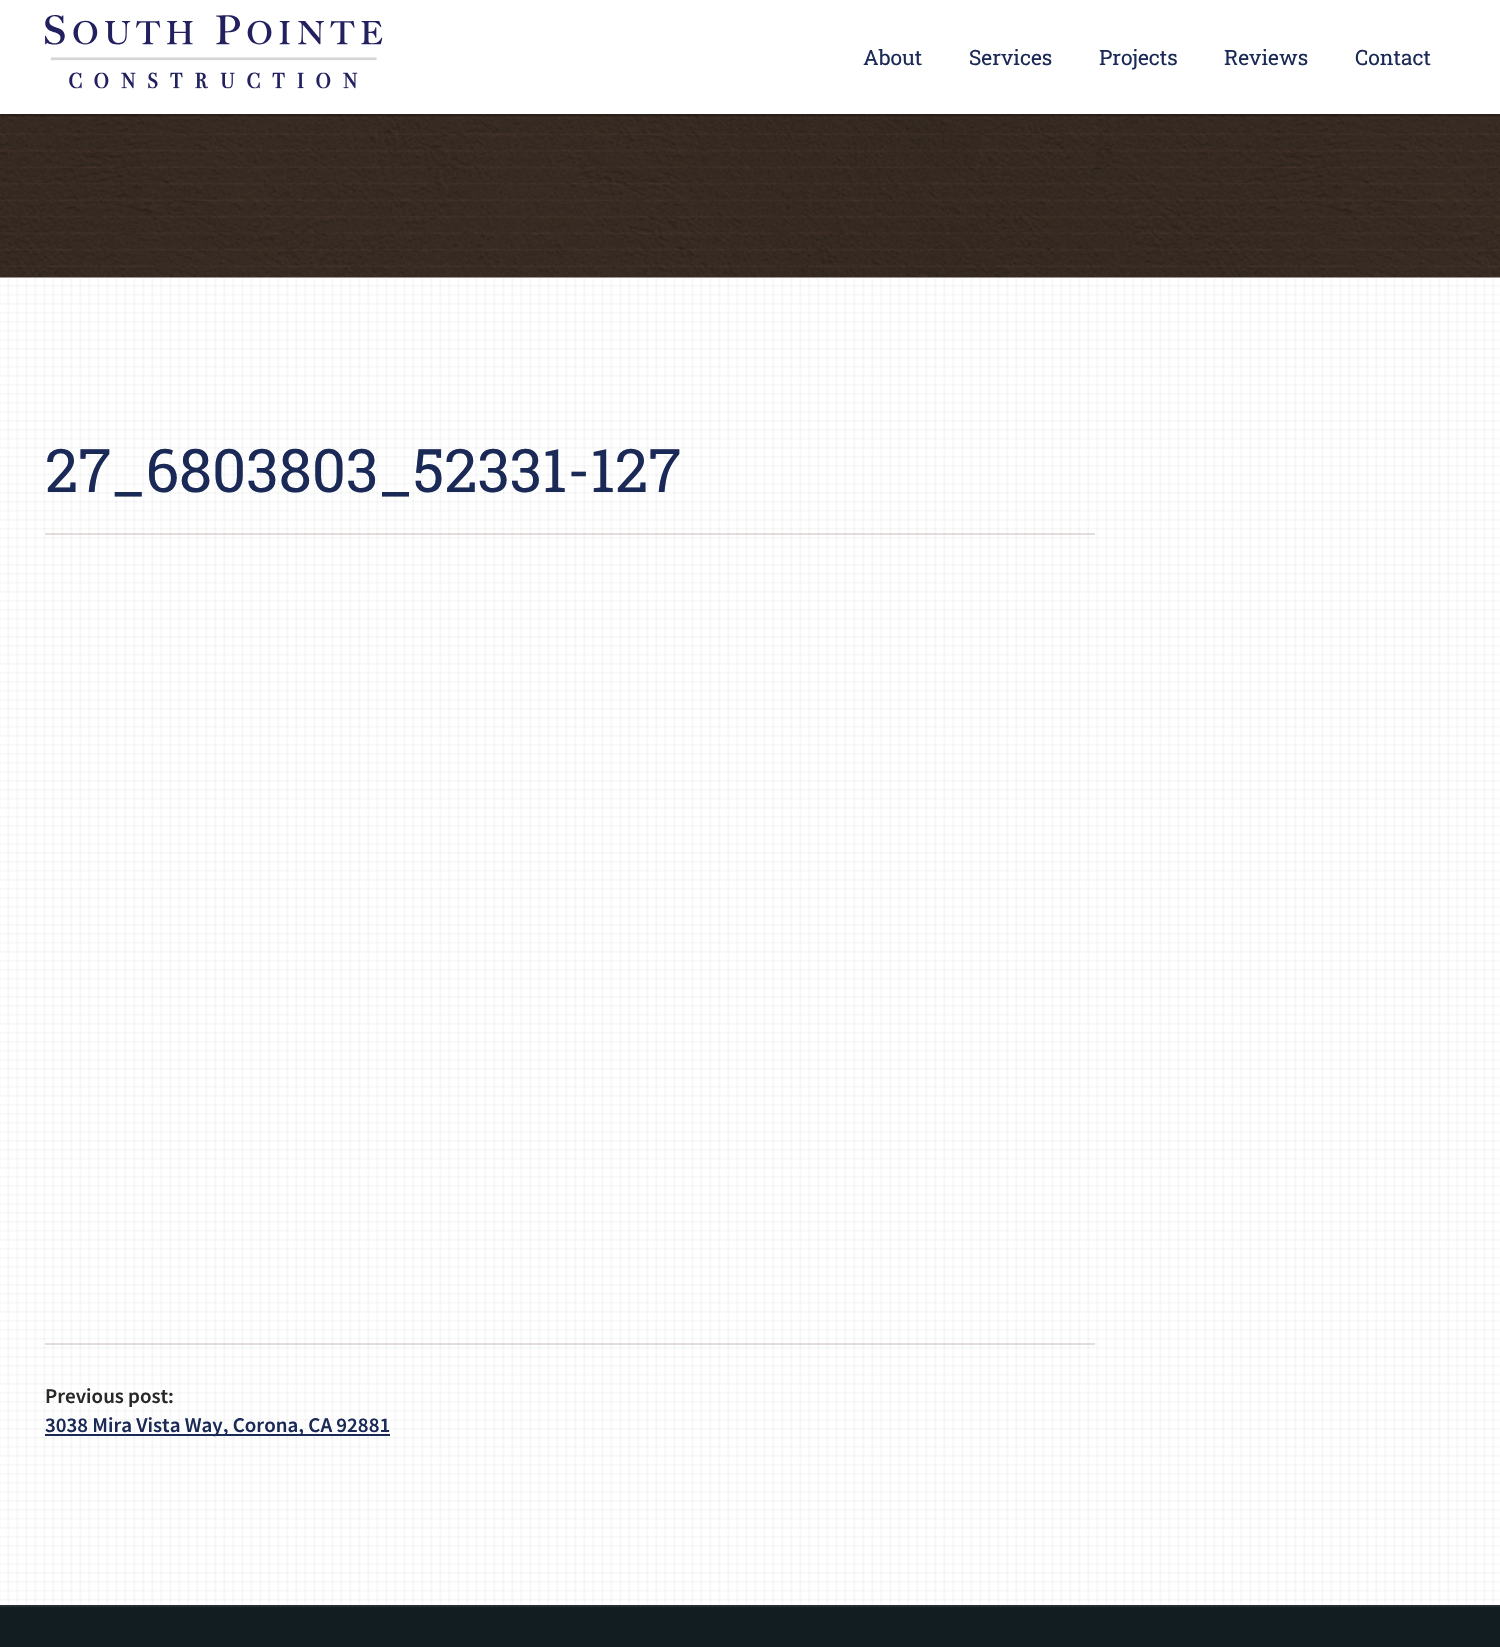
static SkFont makeFont(const char* family, int weight, float size, bool italic = false) {
  SkFontStyle style(weight, SkFontStyle::kNormal_Width,
    italic ? SkFontStyle::kItalic_Slant : SkFontStyle::kUpright_Slant);
  SkFont result(fontMgr->matchFamilyStyle(family, style), size);
  result.setSubpixel(true);
  return result;
}

static void text(SkCanvas* c, const char* s, float x, float y, const SkFont& font, SkColor color) {
  SkPaint ink(SkColor4f::FromColor(color));
  ink.setAntiAlias(true);
  c->drawString(s, x, y, font, ink);
}

static void box(SkCanvas* c, float l, float t, float r, float b, SkColor color) {
  SkPaint ink(SkColor4f::FromColor(color));
  ink.setAntiAlias(true);
  c->drawRect(SkRect::MakeLTRB(l, t, r, b), ink);
}

static void picture(SkCanvas* c, const char* path, float l, float t, float r, float b) {
  auto image = SkImages::DeferredFromEncodedData(SkData::MakeFromFileName(path));
  c->drawImageRect(image, SkRect::MakeLTRB(l, t, r, b), SkSamplingOptions());
}

void draw(SkCanvas* c) {
  SkPaint paint;
  paint.setAntiAlias(true);
  c->clear(0xffffffff);
  picture(c, "img_02.png", 0, 114, 1500, 278);
  paint.setColor(0x4d000000);
  paint.setMaskFilter(SkMaskFilter::MakeBlur(kNormal_SkBlurStyle, 1.5f));
  c->drawRect(SkRect::MakeLTRB(0, 2, 1500, 116), paint);
  paint.setMaskFilter(nullptr);
  box(c, 0, 0, 1500, 114, 0xffffffff);
  picture(c, "img_01.png", 45, 15, 383, 89);
  SkFont face1 = makeFont("Roboto Slab", 400, 21);
  text(c, "About", 863, 65, face1, 0xff1a2956);
  text(c, "Services", 969, 65, face1, 0xff1a2956);
  text(c, "Projects", 1099, 65, face1, 0xff1a2956);
  text(c, "Reviews", 1224, 65, face1, 0xff1a2956);
  text(c, "Contact", 1355, 65, face1, 0xff1a2956);
  picture(c, "img_03.png", 0, 278, 1500, 1605);
  box(c, 45, 533, 1095, 535, 0x33755a49);
  SkFont face2 = makeFont("Roboto Slab", 400, 60);
  text(c, "27_6803803_52331-127", 45, 492, face2, 0xff1a2956);
  box(c, 45, 1343, 1095, 1345, 0x33755a49);
  SkFont face3 = makeFont("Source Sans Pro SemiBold", 600, 21);
  text(c, "Previous post:", 45, 1403, face3, 0xff292827);
  box(c, 45, 1434, 390, 1436, 0xff1a2956);
  text(c, "3038 Mira Vista Way, Corona, CA 92881", 45, 1432, face3, 0xff1a2956);
  box(c, 0, 1607, 1500, 1647, 0xff121d22);
  box(c, 0, 1605, 1500, 1607, 0xff232c31);
}
